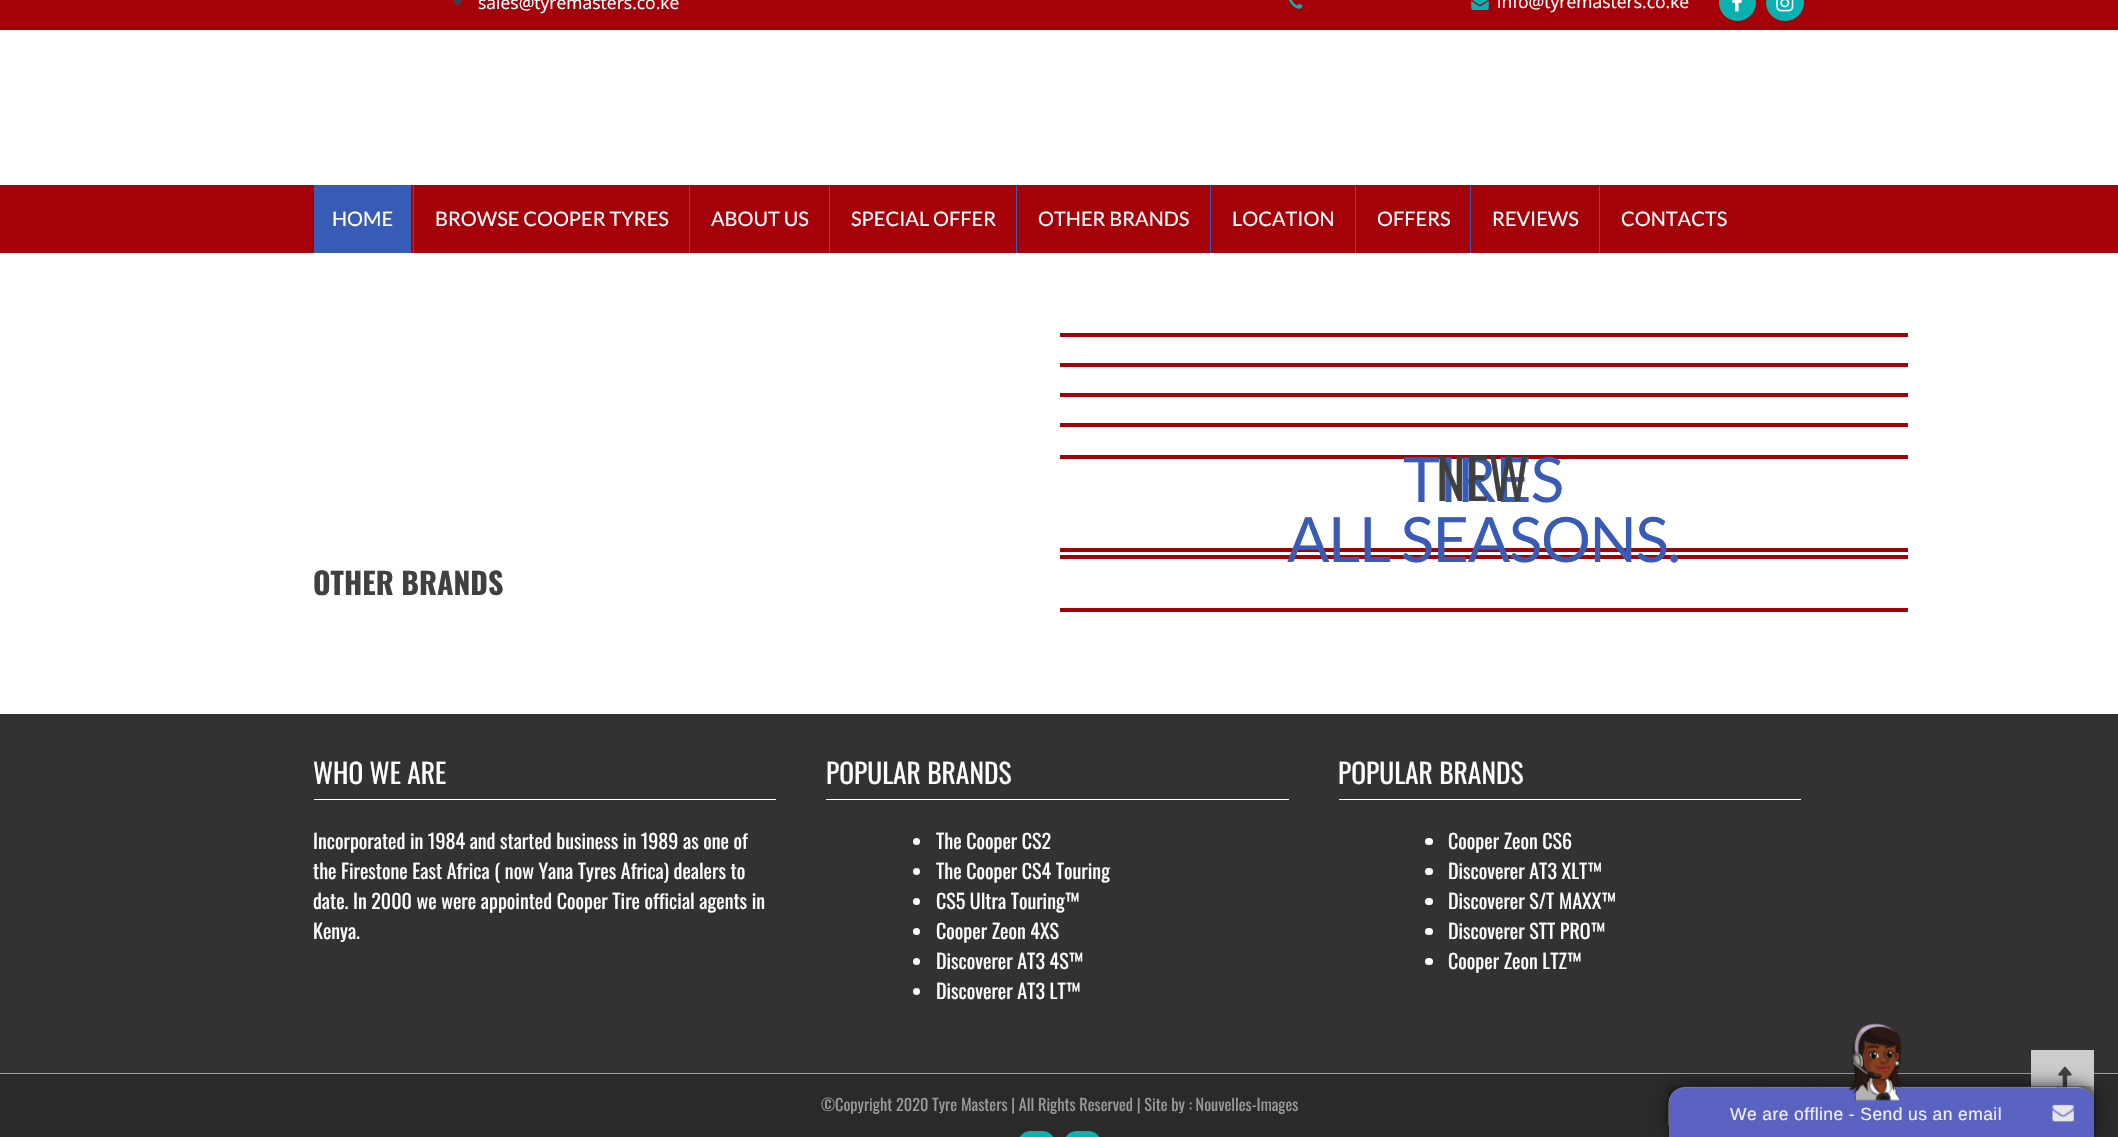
static SkFont makeFont(const char* family, int weight, float size, bool italic = false) {
  SkFontStyle style(weight, SkFontStyle::kNormal_Width,
    italic ? SkFontStyle::kItalic_Slant : SkFontStyle::kUpright_Slant);
  SkFont result(fontMgr->matchFamilyStyle(family, style), size);
  result.setSubpixel(true);
  return result;
}

static void text(SkCanvas* c, const char* s, float x, float y, const SkFont& font, SkColor color) {
  SkPaint ink(SkColor4f::FromColor(color));
  ink.setAntiAlias(true);
  c->drawString(s, x, y, font, ink);
}

static void spacedText(SkCanvas* c, const char* s, float x, float y, const SkFont& font, const SkPaint& ink, float letter, float word) {
  std::vector<SkGlyphID> glyphs(font.countText(s, strlen(s), SkTextEncoding::kUTF8));
  std::vector<float> xs(glyphs.size());
  font.textToGlyphs(s, strlen(s), SkTextEncoding::kUTF8, glyphs);
  font.getXPos(glyphs, xs, x);
  float extra = 0;
  for (size_t i = 0; i < glyphs.size(); i++) {
    xs[i] += extra;
    extra += letter + word * (glyphs[i] == font.unicharToGlyph(' '));
  }
  c->drawTextBlob(SkTextBlob::MakeFromPosHGlyphs(glyphs, xs, y, font), 0, 0, ink);
}

static void box(SkCanvas* c, float l, float t, float r, float b, SkColor color) {
  SkPaint ink(SkColor4f::FromColor(color));
  ink.setAntiAlias(true);
  c->drawRect(SkRect::MakeLTRB(l, t, r, b), ink);
}

static void roundBox(SkCanvas* c, float l, float t, float r, float b, float radius, SkColor color) {
  SkPaint ink(SkColor4f::FromColor(color));
  ink.setAntiAlias(true);
  c->drawRoundRect(SkRect::MakeLTRB(l, t, r, b), radius, radius, ink);
}

static void picture(SkCanvas* c, const char* path, float l, float t, float r, float b) {
  auto image = SkImages::DeferredFromEncodedData(SkData::MakeFromFileName(path));
  c->drawImageRect(image, SkRect::MakeLTRB(l, t, r, b), SkSamplingOptions());
}

void draw(SkCanvas* c) {
  SkPaint paint;
  paint.setAntiAlias(true);
  c->clear(0xffffffff);
  box(c, 0, 0, 2118, 30, 0xffa50109);
  paint.setColor(0xff404040);
  c->drawCircle(457.5f, 1.5f, 3.5f, paint);
  SkFont face1 = makeFont("Open Sans", 400, 17.5f);
  text(c, "sales@tyremasters.co.ke", 478, 9, face1, 0xffffffff);
  picture(c, "img_01.png", 1289, 0, 1303, 9);
  picture(c, "img_02.png", 1471, 0, 1489, 10);
  text(c, "info@tyremasters.co.ke", 1497, 8, face1, 0xffffffff);
  paint.setColor(0xff0bb1af);
  c->drawCircle(1737.5f, 2.5f, 18.5f, paint);
  picture(c, "img_03.png", 1732, 0, 1742, 12);
  roundBox(c, 1766, -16, 1804, 21, 18.5f, 0xff0bb1af);
  picture(c, "img_04.png", 1776, 0, 1794, 12);
  box(c, 0, 185, 2118, 253, 0xffa50109);
  box(c, 314, 185, 411, 253, 0xff385bb5);
  SkFont face2 = makeFont("Lato", 400, 20);
  text(c, "HOME", 332, 226, face2, 0xffffffff);
  box(c, 413, 185, 414, 253, 0xff385bb5);
  text(c, "BROWSE COOPER TYRES", 435, 226, face2, 0xffffffff);
  box(c, 689, 185, 690, 253, 0xff385bb5);
  text(c, "ABOUT US", 711, 226, face2, 0xffffffff);
  box(c, 829, 185, 830, 253, 0xff385bb5);
  text(c, "SPECIAL OFFER", 851, 226, face2, 0xffffffff);
  box(c, 1016, 185, 1017, 253, 0xff385bb5);
  text(c, "OTHER BRANDS", 1038, 226, face2, 0xffffffff);
  box(c, 1210, 185, 1211, 253, 0xff385bb5);
  text(c, "LOCATION", 1232, 226, face2, 0xffffffff);
  box(c, 1355, 185, 1356, 253, 0xff385bb5);
  text(c, "OFFERS", 1377, 226, face2, 0xffffffff);
  box(c, 1470, 185, 1471, 253, 0xff385bb5);
  text(c, "REVIEWS", 1492, 226, face2, 0xffffffff);
  box(c, 1599, 185, 1600, 253, 0xff385bb5);
  text(c, "CONTACTS", 1621, 226, face2, 0xffffffff);
  box(c, 1060, 333, 1908, 337, 0xffa50109);
  box(c, 1060, 455, 1908, 459, 0xffa50109);
  box(c, 1060, 393, 1908, 397, 0xffa50109);
  box(c, 1060, 555, 1908, 559, 0xffa50109);
  SkFont face3 = makeFont("Lato", 400, 62.5f);
  paint.setColor(0xff385bb5);
  spacedText(c, "TIRES", 1403, 502, face3, paint, -1.25f, 0);
  SkFont face4 = makeFont("Oswald", 400, 56);
  text(c, "NEW", 1436, 501, face4, 0xff404040);
  box(c, 1060, 363, 1908, 367, 0xffa50109);
  box(c, 1060, 548, 1908, 552, 0xffa50109);
  box(c, 1060, 423, 1908, 427, 0xffa50109);
  box(c, 1060, 608, 1908, 612, 0xffa50109);
  spacedText(c, "ALL SEASONS.", 1287, 562, face3, paint, -1.25f, 0);
  SkFont face5 = makeFont("Oswald", 700, 30);
  text(c, "OTHER BRANDS", 313, 595, face5, 0xff404040);
  box(c, 0, 714, 2118, 1073, 0xff333232);
  box(c, 314, 799, 776, 800, 0xffffffff);
  SkFont face6 = makeFont("Oswald", 400, 27.5f);
  text(c, "WHO WE ARE", 313, 784, face6, 0xffffffff);
  SkFont face7 = makeFont("Oswald", 400, 20);
  text(c, "Incorporated in 1984 and started business in 1989 as one of", 313, 849, face7, 0xffffffff);
  text(c, "the Firestone East Africa ( now Yana Tyres Africa) dealers to", 313, 879, face7, 0xffffffff);
  text(c, "date. In 2000 we were appointed Cooper Tire official agents in", 313, 909, face7, 0xffffffff);
  text(c, "Kenya.", 313, 939, face7, 0xffffffff);
  box(c, 826, 799, 1289, 800, 0xffffffff);
  text(c, "POPULAR BRANDS", 826, 784, face6, 0xffffffff);
  paint.setColor(0xffffffff);
  c->drawCircle(916.5f, 841.5f, 3.5f, paint);
  text(c, "The Cooper CS2", 936, 849, face7, 0xffffffff);
  c->drawCircle(916.5f, 871.5f, 3.5f, paint);
  text(c, "The Cooper CS4 Touring", 936, 879, face7, 0xffffffff);
  c->drawCircle(916.5f, 901.5f, 3.5f, paint);
  text(c, "CS5 Ultra Touring™", 936, 909, face7, 0xffffffff);
  c->drawCircle(916.5f, 931.5f, 3.5f, paint);
  text(c, "Cooper Zeon 4XS", 936, 939, face7, 0xffffffff);
  c->drawCircle(916.5f, 961.5f, 3.5f, paint);
  text(c, "Discoverer AT3 4S™", 936, 969, face7, 0xffffffff);
  c->drawCircle(916.5f, 991.5f, 3.5f, paint);
  text(c, "Discoverer AT3 LT™", 936, 999, face7, 0xffffffff);
  box(c, 1339, 799, 1801, 800, 0xffffffff);
  text(c, "POPULAR BRANDS", 1338, 784, face6, 0xffffffff);
  roundBox(c, 1425, 838, 1433, 845, 3.5f, 0xffffffff);
  text(c, "Cooper Zeon CS6", 1448, 849, face7, 0xffffffff);
  roundBox(c, 1425, 868, 1433, 875, 3.5f, 0xffffffff);
  text(c, "Discoverer AT3 XLT™", 1448, 879, face7, 0xffffffff);
  roundBox(c, 1425, 898, 1433, 905, 3.5f, 0xffffffff);
  text(c, "Discoverer S/T MAXX™", 1448, 909, face7, 0xffffffff);
  roundBox(c, 1425, 928, 1433, 935, 3.5f, 0xffffffff);
  text(c, "Discoverer STT PRO™", 1448, 939, face7, 0xffffffff);
  roundBox(c, 1425, 958, 1433, 965, 3.5f, 0xffffffff);
  text(c, "Cooper Zeon LTZ™", 1448, 969, face7, 0xffffffff);
  box(c, 0, 1074, 2118, 1137, 0xff2a2a2a);
  box(c, 0, 1073, 2118, 1074, 0xff9b9b9b);
  SkFont face8 = makeFont("Oswald", 400, 16.25f);
  text(c, "©Copyright 2020 Tyre Masters | All Rights Reserved | Site by : Nouvelles-Images", 821, 1111, face8, 0xff999999);
  roundBox(c, 1018, 1131, 1055, 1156, 18.5f, 0xff0bb1af);
  roundBox(c, 1064, 1131, 1101, 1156, 18.5f, 0xff0bb1af);
  box(c, 2031, 1050, 2094, 1102, 0xffcccccc);
  picture(c, "img_05.png", 2056, 1066, 2072, 1088);
  paint.setColor(0xff111111);
  paint.setMaskFilter(SkMaskFilter::MakeBlur(kNormal_SkBlurStyle, 9.5f));
  c->drawRoundRect(SkRect::MakeLTRB(1669, 1088, 2094, 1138), 16, 16, paint);
  paint.setMaskFilter(nullptr);
  picture(c, "img_07.png", 1668, 1086, 2095, 1137);
  paint.setColor(0xff5b63c2);
  c->drawPath(SkPathBuilder().moveTo(1683, 1088).lineTo(2080, 1088).cubicTo(2087.5f, 1088, 2094, 1094.5f, 2094, 1102).lineTo(2094, 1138).lineTo(1669, 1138).lineTo(1669, 1102).cubicTo(1669, 1094.5f, 1675.5f, 1088, 1683, 1088).close().detach(), paint);
  picture(c, "img_06.png", 1848, 1023, 1902, 1101);
  picture(c, "img_08.png", 1698, 1104, 2057, 1137);
  SkFont face9 = makeFont("Liberation Sans", 400, 17.5f);
  paint.setColor(0xfff1f1f1);
  spacedText(c, "We are offline - Send us an email", 1730, 1120, face9, paint, 0.4f, 0);
  picture(c, "img_09.png", 2052, 1104, 2074, 1122);
}
